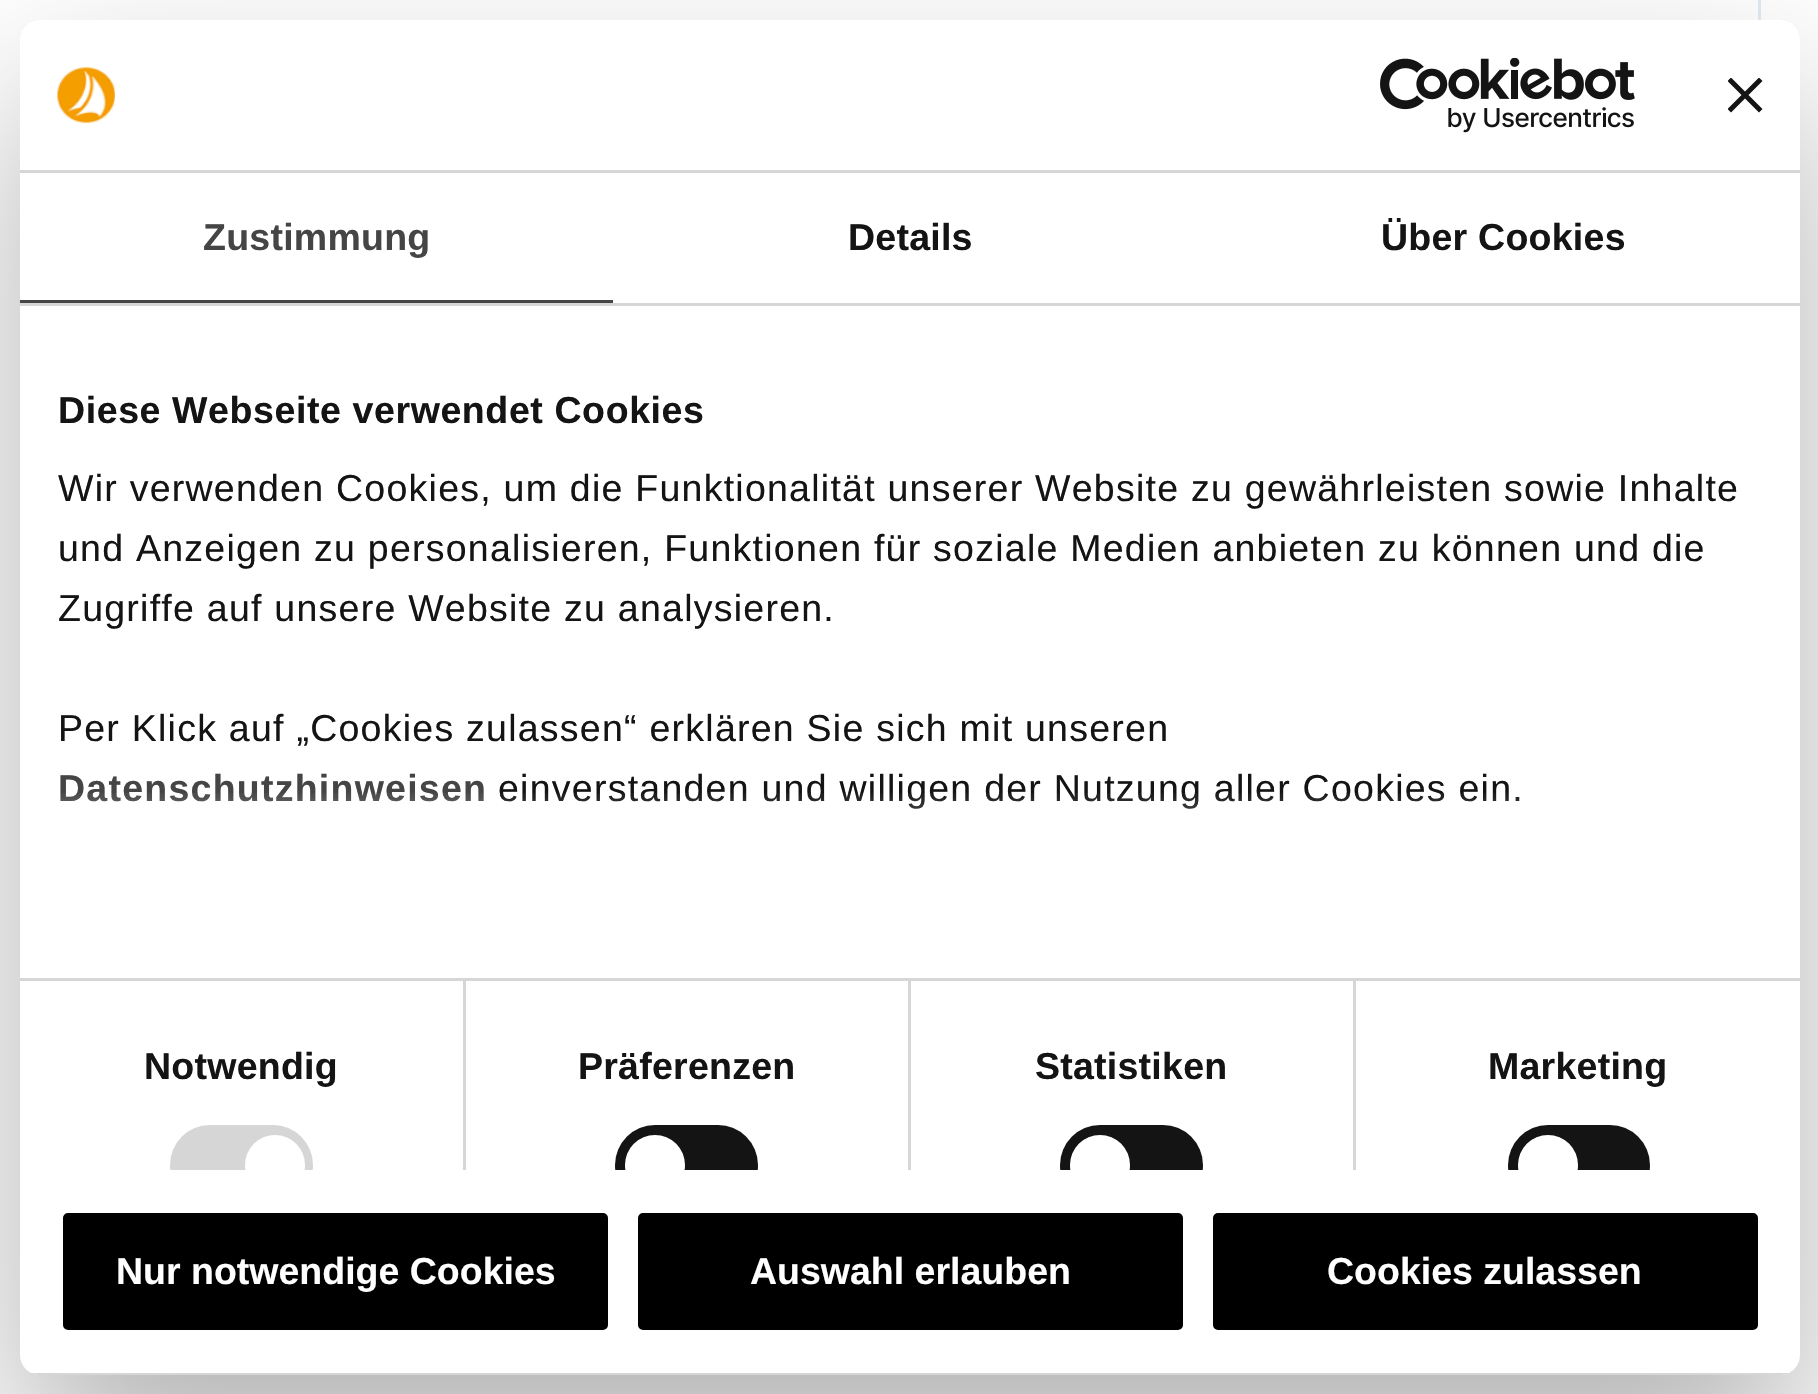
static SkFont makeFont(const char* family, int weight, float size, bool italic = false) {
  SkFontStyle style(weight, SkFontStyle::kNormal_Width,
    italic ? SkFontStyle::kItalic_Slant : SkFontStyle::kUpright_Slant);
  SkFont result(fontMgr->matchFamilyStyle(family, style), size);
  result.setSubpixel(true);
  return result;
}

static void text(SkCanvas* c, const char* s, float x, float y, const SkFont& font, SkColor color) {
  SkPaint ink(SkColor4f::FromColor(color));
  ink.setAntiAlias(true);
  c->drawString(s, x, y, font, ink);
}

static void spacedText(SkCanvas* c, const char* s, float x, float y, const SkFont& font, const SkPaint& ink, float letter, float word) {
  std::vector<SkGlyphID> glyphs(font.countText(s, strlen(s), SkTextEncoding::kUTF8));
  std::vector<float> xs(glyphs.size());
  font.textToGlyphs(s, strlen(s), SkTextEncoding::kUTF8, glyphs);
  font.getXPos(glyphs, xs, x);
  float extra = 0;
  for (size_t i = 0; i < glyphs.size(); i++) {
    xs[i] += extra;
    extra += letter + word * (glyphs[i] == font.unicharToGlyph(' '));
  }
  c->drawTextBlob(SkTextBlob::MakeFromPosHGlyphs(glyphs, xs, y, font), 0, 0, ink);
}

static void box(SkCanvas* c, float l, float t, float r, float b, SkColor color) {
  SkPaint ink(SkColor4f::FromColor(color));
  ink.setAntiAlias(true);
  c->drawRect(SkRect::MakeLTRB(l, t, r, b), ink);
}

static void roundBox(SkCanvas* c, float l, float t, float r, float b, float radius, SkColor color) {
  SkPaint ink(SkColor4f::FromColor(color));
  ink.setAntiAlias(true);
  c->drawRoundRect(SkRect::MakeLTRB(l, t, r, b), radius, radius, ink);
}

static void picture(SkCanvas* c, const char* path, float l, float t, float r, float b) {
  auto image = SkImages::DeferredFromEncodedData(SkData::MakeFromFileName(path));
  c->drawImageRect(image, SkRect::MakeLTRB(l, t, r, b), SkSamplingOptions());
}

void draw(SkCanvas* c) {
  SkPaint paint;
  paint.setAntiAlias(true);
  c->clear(0xffffffff);
  box(c, 1758, 0, 1761, 20, 0xffe2ebf4);
  paint.setColor(0x4d000000);
  paint.setMaskFilter(SkMaskFilter::MakeBlur(kNormal_SkBlurStyle, 85));
  c->drawRoundRect(SkRect::MakeLTRB(20, 100, 1800, 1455), 20, 20, paint);
  paint.setMaskFilter(nullptr);
  roundBox(c, 20, 20, 1800, 1375, 20, 0xffffffff);
  box(c, 20, 170, 1800, 173, 0xffd6d6d6);
  picture(c, "img_01.png", 57, 67, 115, 124);
  picture(c, "img_02.png", 1380, 58, 1635, 133);
  c->save();
  c->clipRect(SkRect::MakeLTRB(1728, 78, 1763, 113));
  paint.setColor(0xff141414);
  c->drawPath(SkPathBuilder().moveTo(1762.5f, 81).lineTo(1759, 77.5f).lineTo(1745, 91.5f).lineTo(1731, 77.5f).lineTo(1727.5f, 81).lineTo(1741.5f, 95).lineTo(1727.5f, 109).lineTo(1731, 112.5f).lineTo(1745, 98.5f).lineTo(1759, 112.5f).lineTo(1762.5f, 109).lineTo(1748.5f, 95).close().detach(), paint);
  c->restore();
  box(c, 20, 303, 1800, 306, 0xffd6d6d6);
  box(c, 20, 300, 613, 303, 0xff454545);
  SkFont face1 = makeFont("Liberation Sans", 700, 37.5f);
  paint.setColor(0xff454545);
  spacedText(c, "Zustimmung", 203, 250, face1, paint, 0.25f, 0);
  paint.setColor(0xff141414);
  spacedText(c, "Details", 848, 250, face1, paint, 0.25f, 0);
  spacedText(c, "Über Cookies", 1381, 250, face1, paint, 0.25f, 0);
  box(c, 463, 980, 466, 1170, 0xffd6d6d6);
  box(c, 908, 980, 911, 1170, 0xffd6d6d6);
  box(c, 1353, 980, 1356, 1170, 0xffd6d6d6);
  box(c, 20, 978, 1800, 981, 0xffd6d6d6);
  spacedText(c, "Diese Webseite verwendet Cookies", 58, 423, face1, paint, 0.6f, 0);
  SkFont face2 = makeFont("Liberation Sans", 400, 37.5f);
  spacedText(c, "Wir verwenden Cookies, um die Funktionalität unserer Website zu gewährleisten sowie Inhalte", 58, 501, face2, paint, 1.25f, 0);
  spacedText(c, "und Anzeigen zu personalisieren, Funktionen für soziale Medien anbieten zu können und die", 58, 561, face2, paint, 1.25f, 0);
  spacedText(c, "Zugriffe auf unsere Website zu analysieren.", 58, 621, face2, paint, 1.25f, 0);
  spacedText(c, "Per Klick auf „Cookies zulassen“ erklären Sie sich mit unseren", 58, 741, face2, paint, 1.25f, 0);
  paint.setColor(0xff454545);
  spacedText(c, "Datenschutzhinweisen", 58, 801, face1, paint, 1.25f, 0);
  paint.setColor(0xff141414);
  spacedText(c, "einverstanden und willigen der Nutzung aller Cookies ein.", 498, 801, face2, paint, 1.25f, 0);
  {
    const SkColor colors[] = {0xffffffff, 0xccffffff, 0x00ffffff};
    const float stops[] = {0, 0.5f, 1};
    const SkPoint ends[] = {{894, 978}, {894, 790}};
    paint.setShader(SkGradientShader::MakeLinear(ends, colors, stops, 3, SkTileMode::kClamp));
    paint.setAlpha(255);
  }
  c->drawRect(SkRect::MakeLTRB(60, 793, 1520, 809), paint);
  paint.setShader(nullptr);
  paint.setColor(0xff141414);
  spacedText(c, "Notwendig", 144, 1079, face1, paint, 0.25f, 0);
  c->save();
  c->clipRect(SkRect::MakeLTRB(20, 305, 1800, 1170));
  roundBox(c, 170, 1125, 313, 1205, 40, 0xffd6d6d6);
  paint.setColor(0xffffffff);
  c->drawCircle(275, 1165, 30, paint);
  c->restore();
  paint.setColor(0xff141414);
  spacedText(c, "Präferenzen", 578, 1079, face1, paint, 0.25f, 0);
  c->save();
  c->clipRect(SkRect::MakeLTRB(20, 305, 1800, 1170));
  roundBox(c, 615, 1125, 758, 1205, 40, 0xff141414);
  paint.setColor(0xffffffff);
  c->drawCircle(655, 1165, 30, paint);
  c->restore();
  paint.setColor(0xff141414);
  spacedText(c, "Statistiken", 1035, 1079, face1, paint, 0.25f, 0);
  c->save();
  c->clipRect(SkRect::MakeLTRB(20, 305, 1800, 1170));
  roundBox(c, 1060, 1125, 1203, 1205, 40, 0xff141414);
  paint.setColor(0xffffffff);
  c->drawCircle(1100, 1165, 30, paint);
  c->restore();
  paint.setColor(0xff141414);
  spacedText(c, "Marketing", 1488, 1079, face1, paint, 0.25f, 0);
  c->save();
  c->clipRect(SkRect::MakeLTRB(20, 305, 1800, 1170));
  roundBox(c, 1508, 1125, 1650, 1205, 40, 0xff141414);
  paint.setColor(0xffffffff);
  c->drawCircle(1548, 1165, 30, paint);
  c->restore();
  c->save();
  c->clipPath(SkPathBuilder().moveTo(40, 20).lineTo(1780, 20).cubicTo(1791, 20, 1800, 29, 1800, 40).lineTo(1800, 1355).cubicTo(1800, 1366, 1791, 1375, 1780, 1375).lineTo(40, 1375).cubicTo(29, 1375, 20, 1366, 20, 1355).lineTo(20, 40).cubicTo(20, 29, 29, 20, 40, 20).close().detach(), true);
  box(c, 31, 1373, 1789, 1375, 0xffd6d6d6);
  c->restore();
  paint.setColor(0xff000000);
  c->drawRoundRect(SkRect::MakeLTRB(60.5f, 1210.5f, 610.5f, 1332.5f), 7.5f, 7.5f, paint);
  paint.setStyle(SkPaint::kStroke_Style);
  paint.setStrokeWidth(5);
  paint.setColor(0xffffffff);
  c->drawRoundRect(SkRect::MakeLTRB(60.5f, 1210.5f, 610.5f, 1332.5f), 7.5f, 7.5f, paint);
  text(c, "Nur notwendige Cookies", 116, 1284, face1, 0xffffffff);
  paint.setStyle(SkPaint::kFill_Style);
  paint.setColor(0xff000000);
  c->drawRoundRect(SkRect::MakeLTRB(635.5f, 1210.5f, 1185.5f, 1332.5f), 7.5f, 7.5f, paint);
  paint.setStyle(SkPaint::kStroke_Style);
  paint.setColor(0xffffffff);
  c->drawRoundRect(SkRect::MakeLTRB(635.5f, 1210.5f, 1185.5f, 1332.5f), 7.5f, 7.5f, paint);
  text(c, "Auswahl erlauben", 750, 1284, face1, 0xffffffff);
  paint.setStyle(SkPaint::kFill_Style);
  paint.setColor(0xff000000);
  c->drawRoundRect(SkRect::MakeLTRB(1210.5f, 1210.5f, 1760.5f, 1332.5f), 7.5f, 7.5f, paint);
  paint.setStyle(SkPaint::kStroke_Style);
  paint.setColor(0xffffffff);
  c->drawRoundRect(SkRect::MakeLTRB(1210.5f, 1210.5f, 1760.5f, 1332.5f), 7.5f, 7.5f, paint);
  text(c, "Cookies zulassen", 1327, 1284, face1, 0xffffffff);
}
